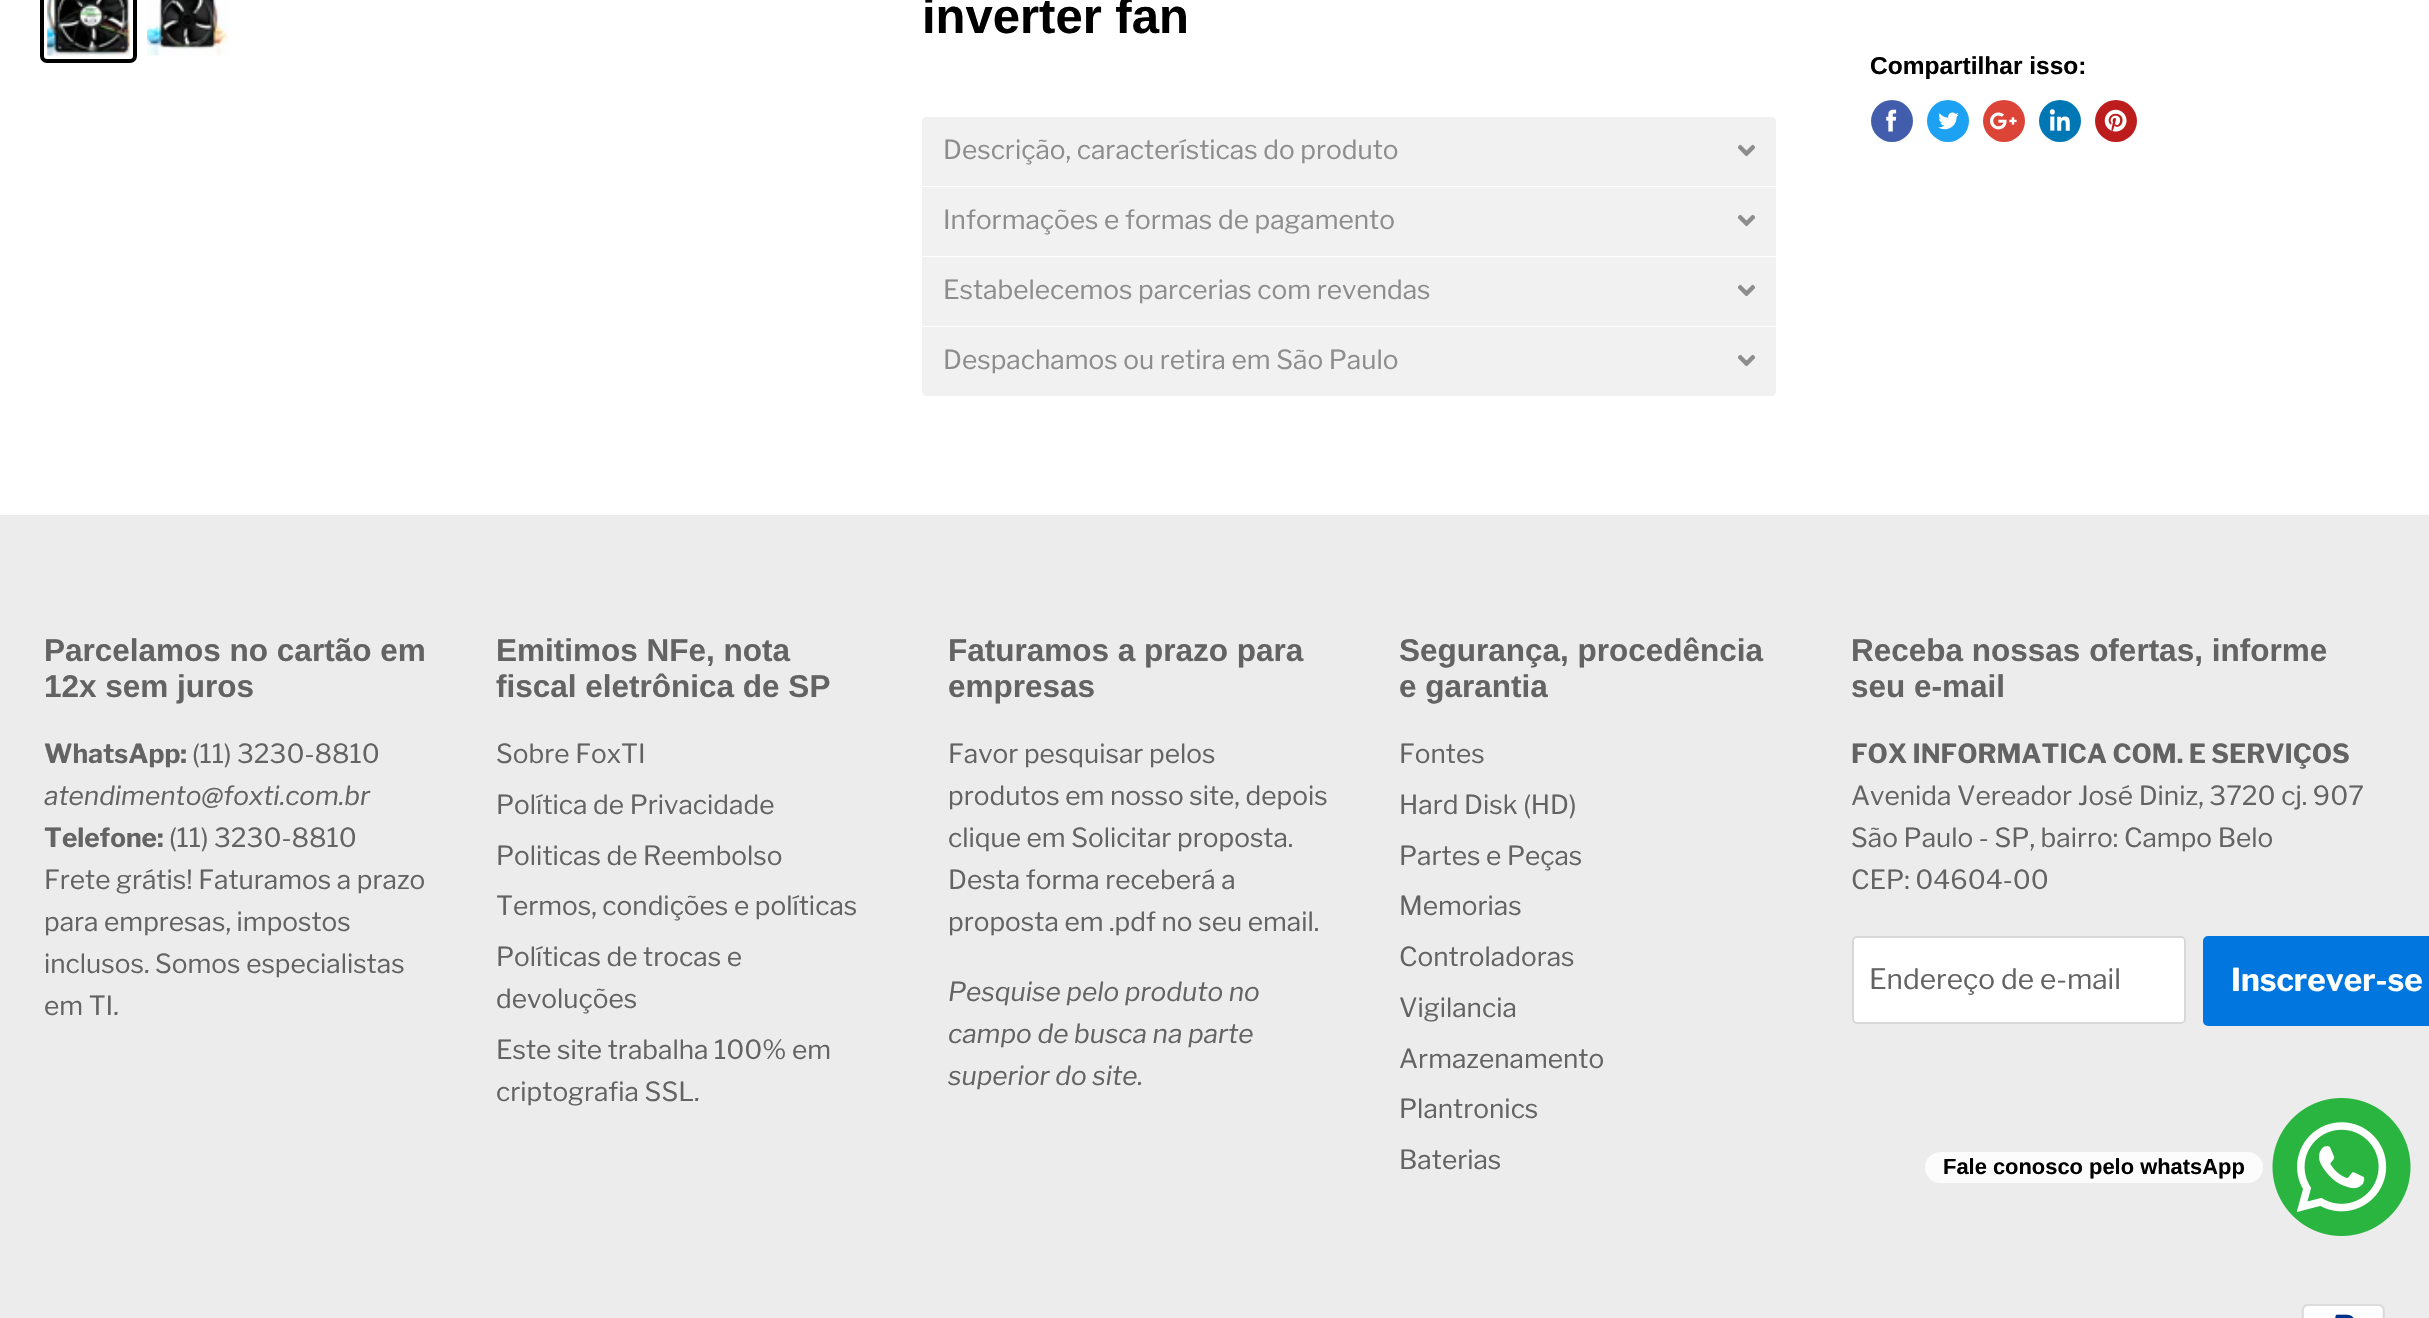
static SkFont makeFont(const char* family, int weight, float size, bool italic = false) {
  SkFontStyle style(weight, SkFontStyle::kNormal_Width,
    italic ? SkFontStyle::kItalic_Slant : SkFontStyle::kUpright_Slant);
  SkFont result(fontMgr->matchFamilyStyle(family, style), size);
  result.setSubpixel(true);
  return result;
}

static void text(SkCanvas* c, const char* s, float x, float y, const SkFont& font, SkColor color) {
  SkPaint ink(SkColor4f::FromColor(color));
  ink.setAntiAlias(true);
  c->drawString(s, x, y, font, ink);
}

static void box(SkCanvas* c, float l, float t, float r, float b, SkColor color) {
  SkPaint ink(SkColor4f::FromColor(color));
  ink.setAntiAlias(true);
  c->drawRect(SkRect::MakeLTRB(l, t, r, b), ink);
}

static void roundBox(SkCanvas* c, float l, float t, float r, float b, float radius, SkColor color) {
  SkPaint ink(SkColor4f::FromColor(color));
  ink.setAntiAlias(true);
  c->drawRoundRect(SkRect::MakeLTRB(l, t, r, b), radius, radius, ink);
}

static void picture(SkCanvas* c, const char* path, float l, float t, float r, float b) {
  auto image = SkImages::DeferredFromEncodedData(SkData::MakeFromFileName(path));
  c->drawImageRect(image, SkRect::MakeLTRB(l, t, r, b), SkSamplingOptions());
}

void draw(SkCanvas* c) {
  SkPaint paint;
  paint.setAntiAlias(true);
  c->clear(0xffffffff);
  paint.setStyle(SkPaint::kStroke_Style);
  paint.setStrokeWidth(4);
  paint.setColor(0xff000000);
  c->drawRoundRect(SkRect::MakeLTRB(42, -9, 135, 61), 5, 5, paint);
  picture(c, "img_01.png", 47, 0, 130, 56);
  picture(c, "img_02.png", 147, 0, 229, 56);
  SkFont face1 = makeFont("Arimo", 700, 49);
  text(c, "inverter fan", 922, 33, face1, 0xff000000);
  paint.setStyle(SkPaint::kFill_Style);
  paint.setColor(0xfff1f1f1);
  c->drawPath(SkPathBuilder().moveTo(927, 117).lineTo(1771, 117).cubicTo(1774, 117, 1776, 119, 1776, 122).lineTo(1776, 186).lineTo(922, 186).lineTo(922, 122).cubicTo(922, 119, 924, 117, 927, 117).close().detach(), paint);
  SkFont face2 = makeFont("Libre Franklin", 400, 26.25f);
  text(c, "Descrição, características do produto", 943, 159, face2, 0xff8d8d8d);
  picture(c, "img_03.png", 1738, 144, 1755, 157);
  box(c, 922, 187, 1776, 256, 0xfff1f1f1);
  text(c, "Informações e formas de pagamento", 943, 229, face2, 0xff8d8d8d);
  picture(c, "img_03.png", 1738, 214, 1755, 227);
  box(c, 922, 257, 1776, 326, 0xfff1f1f1);
  text(c, "Estabelecemos parcerias com revendas", 943, 299, face2, 0xff8d8d8d);
  picture(c, "img_03.png", 1738, 284, 1755, 297);
  c->drawPath(SkPathBuilder().moveTo(922, 327).lineTo(1776, 327).lineTo(1776, 391).cubicTo(1776, 394, 1774, 396, 1771, 396).lineTo(927, 396).cubicTo(924, 396, 922, 394, 922, 391).close().detach(), paint);
  text(c, "Despachamos ou retira em São Paulo", 943, 369, face2, 0xff8d8d8d);
  picture(c, "img_03.png", 1738, 354, 1755, 367);
  SkFont face3 = makeFont("Arimo", 700, 24.5f);
  text(c, "Compartilhar isso:", 1870, 74, face3, 0xff000000);
  paint.setColor(0xff425dab);
  c->drawCircle(1892, 121, 21, paint);
  picture(c, "img_04.png", 1886, 109, 1897, 132);
  paint.setColor(0xff1da1f2);
  c->drawCircle(1948, 121, 21, paint);
  picture(c, "img_05.png", 1938, 112, 1959, 130);
  paint.setColor(0xffdb4437);
  c->drawCircle(2004, 121, 21, paint);
  picture(c, "img_06.png", 1990, 112, 2017, 130);
  paint.setColor(0xff0077b5);
  c->drawCircle(2060, 121, 21, paint);
  picture(c, "img_07.png", 2049, 109, 2070, 131);
  paint.setColor(0xffbd1c1c);
  c->drawCircle(2116, 121, 21, paint);
  picture(c, "img_08.png", 2104, 109, 2127, 132);
  box(c, 0, 515, 2429, 1318, 0xffececec);
  SkFont face4 = makeFont("Arimo", 700, 31.5f);
  text(c, "Parcelamos no cartão em", 44, 661, face4, 0xff636363);
  text(c, "12x sem juros", 44, 697, face4, 0xff636363);
  SkFont face5 = makeFont("Libre Franklin", 700, 26.25f);
  text(c, "WhatsApp:", 44, 763, face5, 0xff636363);
  text(c, "(11) 3230-8810", 192, 763, face2, 0xff636363);
  SkFont face6 = makeFont("Libre Franklin", 400, 26.25f, true);
  text(c, "atendimento@foxti.com.br", 44, 805, face6, 0xff636363);
  text(c, "Telefone:", 44, 847, face5, 0xff636363);
  text(c, "(11) 3230-8810", 169, 847, face2, 0xff636363);
  text(c, "Frete grátis! Faturamos a prazo", 44, 889, face2, 0xff636363);
  text(c, "para empresas, impostos", 44, 931, face2, 0xff636363);
  text(c, "inclusos. Somos especialistas", 44, 973, face2, 0xff636363);
  text(c, "em TI.", 44, 1015, face2, 0xff636363);
  text(c, "Emitimos NFe, nota", 496, 661, face4, 0xff636363);
  text(c, "fiscal eletrônica de SP", 496, 697, face4, 0xff636363);
  text(c, "Sobre FoxTI", 496, 763, face2, 0xff636363);
  text(c, "Política de Privacidade", 496, 814, face2, 0xff636363);
  text(c, "Politicas de Reembolso", 496, 865, face2, 0xff636363);
  text(c, "Termos, condições e políticas", 496, 915, face2, 0xff636363);
  text(c, "Políticas de trocas e", 496, 966, face2, 0xff636363);
  text(c, "devoluções", 496, 1008, face2, 0xff636363);
  text(c, "Este site trabalha 100% em", 496, 1059, face2, 0xff636363);
  text(c, "criptografia SSL.", 496, 1101, face2, 0xff636363);
  text(c, "Faturamos a prazo para", 948, 661, face4, 0xff636363);
  text(c, "empresas", 948, 697, face4, 0xff636363);
  text(c, "Favor pesquisar pelos", 948, 763, face2, 0xff636363);
  text(c, "produtos em nosso site, depois", 948, 805, face2, 0xff636363);
  text(c, "clique em Solicitar proposta.", 948, 847, face2, 0xff636363);
  text(c, "Desta forma receberá a", 948, 889, face2, 0xff636363);
  text(c, "proposta em .pdf no seu email.", 948, 931, face2, 0xff636363);
  text(c, "Pesquise pelo produto no", 948, 1001, face6, 0xff636363);
  text(c, "campo de busca na parte", 948, 1043, face6, 0xff636363);
  text(c, "superior do site.", 948, 1085, face6, 0xff636363);
  text(c, "Segurança, procedência", 1399, 661, face4, 0xff636363);
  text(c, "e garantia", 1399, 697, face4, 0xff636363);
  text(c, "Fontes", 1399, 763, face2, 0xff636363);
  text(c, "Hard Disk (HD)", 1399, 814, face2, 0xff636363);
  text(c, "Partes e Peças", 1399, 865, face2, 0xff636363);
  text(c, "Memorias", 1399, 915, face2, 0xff636363);
  text(c, "Controladoras", 1399, 966, face2, 0xff636363);
  text(c, "Vigilancia", 1399, 1017, face2, 0xff636363);
  text(c, "Armazenamento", 1399, 1068, face2, 0xff636363);
  text(c, "Plantronics", 1399, 1118, face2, 0xff636363);
  text(c, "Baterias", 1399, 1169, face2, 0xff636363);
  text(c, "Receba nossas ofertas, informe", 1851, 661, face4, 0xff636363);
  text(c, "seu e-mail", 1851, 697, face4, 0xff636363);
  text(c, "FOX INFORMATICA COM. E SERVIÇOS", 1851, 763, face5, 0xff636363);
  text(c, "Avenida Vereador José Diniz, 3720 cj. 907", 1851, 805, face2, 0xff636363);
  text(c, "São Paulo - SP, bairro: Campo Belo", 1851, 847, face2, 0xff636363);
  text(c, "CEP: 04604-00", 1851, 889, face2, 0xff636363);
  roundBox(c, 1852, 936, 2186, 1024, 5, 0xffffffff);
  paint.setStyle(SkPaint::kStroke_Style);
  paint.setStrokeWidth(2);
  paint.setColor(0x4d7f7f7f);
  c->drawRoundRect(SkRect::MakeLTRB(1853, 937, 2185, 1023), 4, 4, paint);
  SkFont face7 = makeFont("Libre Franklin", 400, 28);
  text(c, "Endereço de e-mail", 1869, 989, face7, 0xff636363);
  paint.setStyle(SkPaint::kFill_Style);
  paint.setColor(0xff0076de);
  c->drawRoundRect(SkRect::MakeLTRB(2204, 937, 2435, 1025), 4, 4, paint);
  paint.setStyle(SkPaint::kStroke_Style);
  c->drawRoundRect(SkRect::MakeLTRB(2204, 937, 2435, 1025), 4, 4, paint);
  SkFont face8 = makeFont("Libre Franklin", 700, 31.5f);
  text(c, "Inscrever-se", 2231, 991, face8, 0xffffffff);
  picture(c, "img_09.png", 2301, 1304, 2385, 1318);
  roundBox(c, 1925, 1152, 2263, 1183, 15.5f, 0xfffcfcfc);
  SkFont face9 = makeFont("Liberation Sans", 700, 21.9f);
  text(c, "Fale conosco pelo whatsApp", 1943, 1174, face9, 0xff000000);
  picture(c, "img_10.png", 2272, 1098, 2411, 1236);
}
